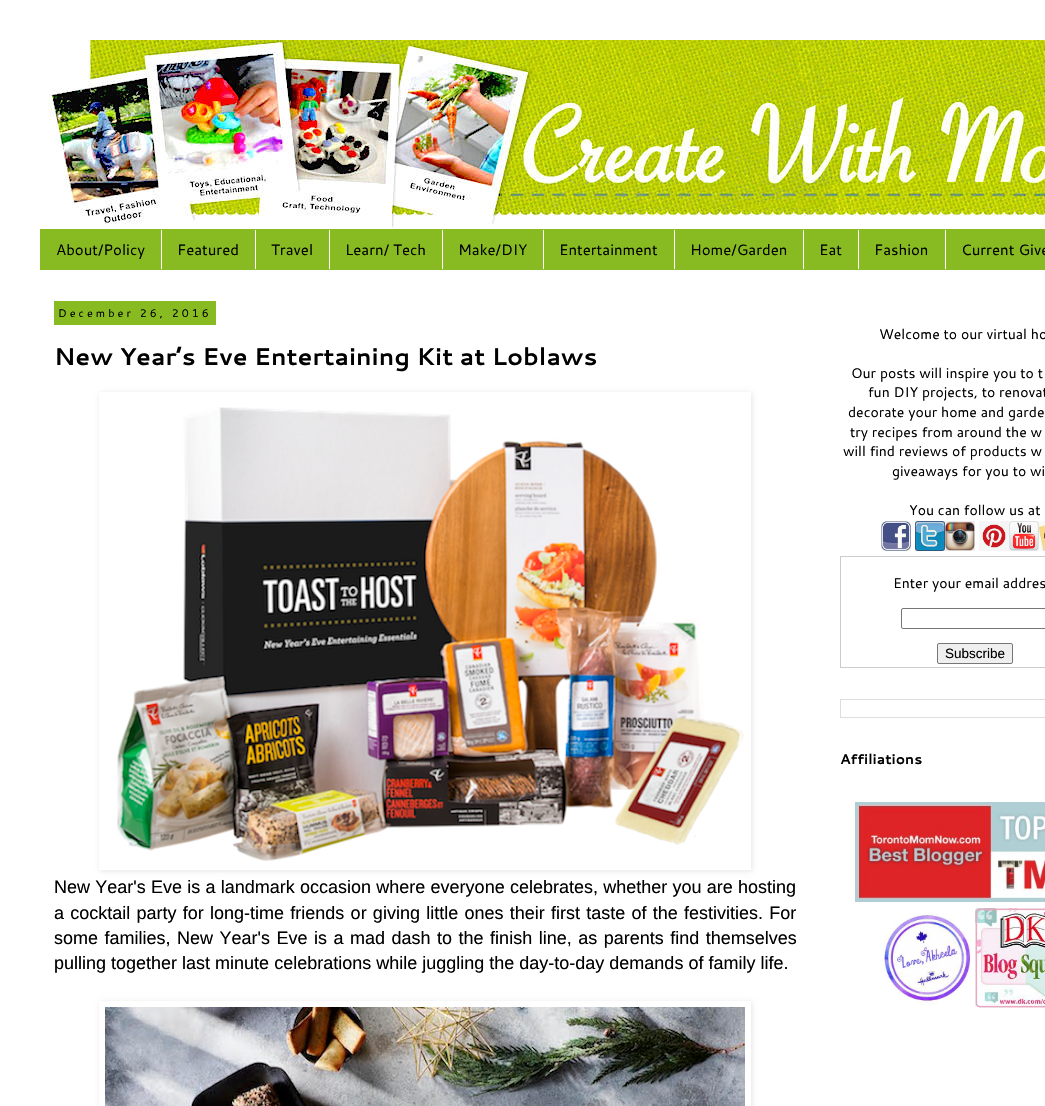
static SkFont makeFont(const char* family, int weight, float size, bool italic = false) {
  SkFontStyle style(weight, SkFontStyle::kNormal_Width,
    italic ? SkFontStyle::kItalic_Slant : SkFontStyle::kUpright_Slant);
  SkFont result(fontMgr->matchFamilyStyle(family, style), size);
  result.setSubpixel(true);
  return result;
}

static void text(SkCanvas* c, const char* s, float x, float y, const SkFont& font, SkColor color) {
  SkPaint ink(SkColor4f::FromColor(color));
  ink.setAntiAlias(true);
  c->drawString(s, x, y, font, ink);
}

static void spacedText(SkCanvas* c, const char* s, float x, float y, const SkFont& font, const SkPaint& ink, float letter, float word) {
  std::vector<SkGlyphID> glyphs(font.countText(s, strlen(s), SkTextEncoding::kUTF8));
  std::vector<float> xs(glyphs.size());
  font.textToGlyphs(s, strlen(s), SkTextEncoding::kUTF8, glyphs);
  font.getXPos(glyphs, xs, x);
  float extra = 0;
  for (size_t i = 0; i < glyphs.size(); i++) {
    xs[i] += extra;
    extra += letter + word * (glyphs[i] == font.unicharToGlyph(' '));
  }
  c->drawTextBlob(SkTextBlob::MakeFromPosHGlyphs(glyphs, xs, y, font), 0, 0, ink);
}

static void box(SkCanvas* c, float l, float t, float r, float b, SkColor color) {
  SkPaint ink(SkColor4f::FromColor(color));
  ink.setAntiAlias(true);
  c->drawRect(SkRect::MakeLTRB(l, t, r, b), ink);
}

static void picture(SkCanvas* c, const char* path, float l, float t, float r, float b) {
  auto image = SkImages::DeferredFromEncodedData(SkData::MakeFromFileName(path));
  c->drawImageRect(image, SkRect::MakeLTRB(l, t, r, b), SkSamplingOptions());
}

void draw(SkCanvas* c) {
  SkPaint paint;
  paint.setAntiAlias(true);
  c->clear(0xffffffff);
  picture(c, "img_01.png", 48, 40, 1045, 228);
  box(c, 40, 229, 1045, 270, 0xff88bb21);
  SkFont face1 = makeFont("Cantarell", 400, 15);
  text(c, "About/Policy", 56, 255, face1, 0xff000000);
  box(c, 161, 230, 162, 269, 0xffffffff);
  text(c, "Featured", 177, 255, face1, 0xff000000);
  box(c, 255, 230, 256, 269, 0xffffffff);
  text(c, "Travel", 271, 255, face1, 0xff000000);
  box(c, 329, 230, 330, 269, 0xffffffff);
  text(c, "Learn/ Tech", 345, 255, face1, 0xff000000);
  box(c, 442, 230, 443, 269, 0xffffffff);
  text(c, "Make/DIY", 458, 255, face1, 0xff000000);
  box(c, 543, 230, 544, 269, 0xffffffff);
  text(c, "Entertainment", 559, 255, face1, 0xff000000);
  box(c, 674, 230, 675, 269, 0xffffffff);
  text(c, "Home/Garden", 690, 255, face1, 0xff000000);
  box(c, 803, 230, 804, 269, 0xffffffff);
  text(c, "Eat", 819, 255, face1, 0xff000000);
  box(c, 858, 230, 859, 269, 0xffffffff);
  text(c, "Fashion", 874, 255, face1, 0xff000000);
  box(c, 945, 230, 946, 269, 0xffffffff);
  text(c, "Current Give", 961, 255, face1, 0xff000000);
  box(c, 54, 301, 216, 325, 0xff88bb21);
  SkFont face2 = makeFont("Cantarell", 400, 11);
  paint.setColor(0xff000000);
  spacedText(c, "December 26, 2016", 58, 317, face2, paint, 3, 0);
  SkFont face3 = makeFont("Cantarell", 700, 24);
  text(c, "New Year’s Eve Entertaining Kit at Loblaws", 54, 365, face3, 0xff000000);
  c->save();
  c->clipPath(SkPathBuilder(SkPathFillType::kEvenOdd).moveTo(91, 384).lineTo(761, 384).lineTo(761, 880).lineTo(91, 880).close().moveTo(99, 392).lineTo(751, 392).lineTo(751, 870).lineTo(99, 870).close().detach(), true);
  paint.setColor(0x1a000000);
  paint.setMaskFilter(SkMaskFilter::MakeBlur(kNormal_SkBlurStyle, 2.5f));
  c->drawRect(SkRect::MakeLTRB(100, 393, 752, 871), paint);
  paint.setMaskFilter(nullptr);
  c->restore();
  picture(c, "img_02.png", 117, 407, 744, 861);
  SkFont face4 = makeFont("Liberation Sans", 400, 18);
  paint.setColor(0xff000000);
  spacedText(c, "New Year's Eve is a landmark occasion where everyone celebrates, whether you are hosting", 54, 893, face4, paint, 0, 0.25f);
  spacedText(c, "a cocktail party for long-time friends or giving little ones their first taste of the festivities. For", 54, 919, face4, paint, 0, 1.25f);
  spacedText(c, "some families, New Year's Eve is a mad dash to the finish line, as parents find themselves", 54, 944, face4, paint, 0, 1.5f);
  text(c, "pulling together last minute celebrations while juggling the day-to-day demands of family life.", 54, 969, face4, 0xff000000);
  c->save();
  c->clipPath(SkPathBuilder(SkPathFillType::kEvenOdd).moveTo(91, 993).lineTo(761, 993).lineTo(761, 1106).lineTo(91, 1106).close().moveTo(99, 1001).lineTo(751, 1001).lineTo(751, 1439).lineTo(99, 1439).close().detach(), true);
  paint.setColor(0x1a000000);
  paint.setMaskFilter(SkMaskFilter::MakeBlur(kNormal_SkBlurStyle, 2.5f));
  c->drawRect(SkRect::MakeLTRB(100, 1002, 752, 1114), paint);
  paint.setMaskFilter(nullptr);
  c->restore();
  picture(c, "img_03.png", 105, 1007, 745, 1106);
  SkFont face5 = makeFont("Cantarell", 400, 14);
  text(c, "Welcome to our virtual ho", 879, 339, face5, 0xff000000);
  text(c, "Our posts will inspire you to t", 851, 378, face5, 0xff000000);
  text(c, "fun DIY projects, to renovat", 868, 397, face5, 0xff000000);
  text(c, "decorate your home and garde", 848, 417, face5, 0xff000000);
  text(c, "try recipes from around the w", 850, 437, face5, 0xff000000);
  text(c, "will find reviews of products w", 843, 456, face5, 0xff000000);
  text(c, "giveaways for you to wi", 892, 476, face5, 0xff000000);
  text(c, "You can follow us at", 909, 515, face5, 0xff000000);
  picture(c, "img_04.png", 881, 521, 911, 551);
  picture(c, "img_05.png", 915, 521, 945, 551);
  picture(c, "img_06.png", 945, 521, 975, 551);
  picture(c, "img_07.png", 979, 521, 1009, 551);
  picture(c, "img_08.png", 1009, 521, 1039, 551);
  picture(c, "img_09.png", 1039, 521, 1045, 551);
  paint.setStyle(SkPaint::kStroke_Style);
  paint.setStrokeWidth(1);
  paint.setColor(0xffcccccc);
  c->drawRect(SkRect::MakeLTRB(840.5f, 556.5f, 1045.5f, 667.5f), paint);
  text(c, "Enter your email addres", 893, 588, face5, 0xff000000);
  paint.setColor(0xff767676);
  c->drawRoundRect(SkRect::MakeLTRB(901.5f, 608.5f, 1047.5f, 628.5f), 1.5f, 1.5f, paint);
  paint.setStyle(SkPaint::kFill_Style);
  paint.setColor(0xffefefef);
  c->drawRoundRect(SkRect::MakeLTRB(937.5f, 643.5f, 1012.5f, 663.5f), 1.5f, 1.5f, paint);
  paint.setStyle(SkPaint::kStroke_Style);
  paint.setColor(0xff767676);
  c->drawRoundRect(SkRect::MakeLTRB(937.5f, 643.5f, 1012.5f, 663.5f), 1.5f, 1.5f, paint);
  SkFont face6 = makeFont("Liberation Sans", 400, 13.5f);
  text(c, "Subscribe", 945, 658, face6, 0xff000000);
  paint.setColor(0xffdddddd);
  c->drawRect(SkRect::MakeLTRB(840.5f, 699.5f, 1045.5f, 717.5f), paint);
  SkFont face7 = makeFont("Cantarell", 700, 14);
  text(c, "Affiliations", 840, 764, face7, 0xff000000);
  picture(c, "img_10.png", 855, 802, 1045, 902);
  picture(c, "img_11.png", 881, 914, 972, 1005);
  picture(c, "img_12.png", 975, 908, 1045, 1008);
}
